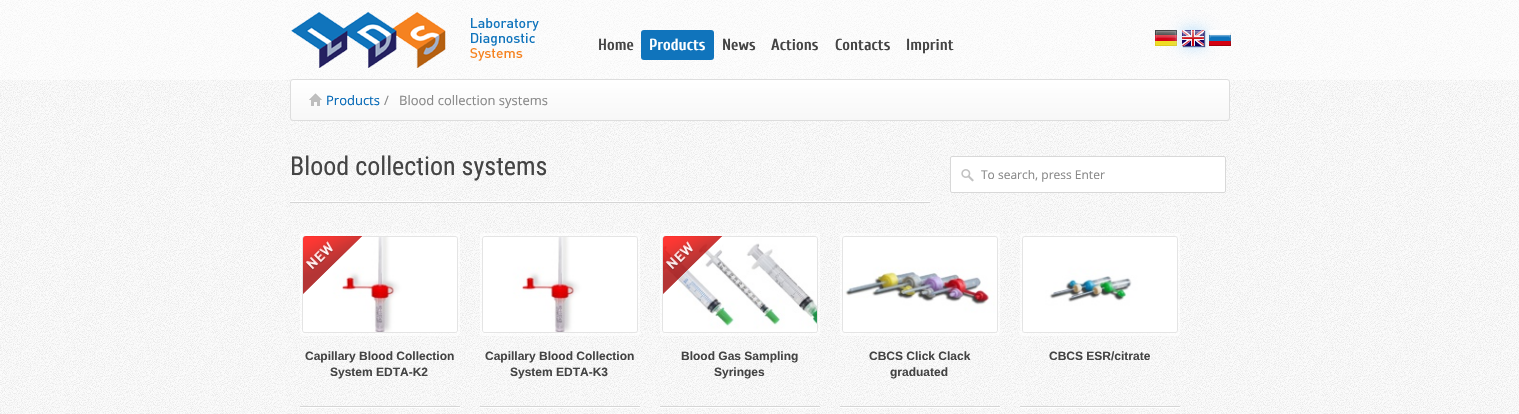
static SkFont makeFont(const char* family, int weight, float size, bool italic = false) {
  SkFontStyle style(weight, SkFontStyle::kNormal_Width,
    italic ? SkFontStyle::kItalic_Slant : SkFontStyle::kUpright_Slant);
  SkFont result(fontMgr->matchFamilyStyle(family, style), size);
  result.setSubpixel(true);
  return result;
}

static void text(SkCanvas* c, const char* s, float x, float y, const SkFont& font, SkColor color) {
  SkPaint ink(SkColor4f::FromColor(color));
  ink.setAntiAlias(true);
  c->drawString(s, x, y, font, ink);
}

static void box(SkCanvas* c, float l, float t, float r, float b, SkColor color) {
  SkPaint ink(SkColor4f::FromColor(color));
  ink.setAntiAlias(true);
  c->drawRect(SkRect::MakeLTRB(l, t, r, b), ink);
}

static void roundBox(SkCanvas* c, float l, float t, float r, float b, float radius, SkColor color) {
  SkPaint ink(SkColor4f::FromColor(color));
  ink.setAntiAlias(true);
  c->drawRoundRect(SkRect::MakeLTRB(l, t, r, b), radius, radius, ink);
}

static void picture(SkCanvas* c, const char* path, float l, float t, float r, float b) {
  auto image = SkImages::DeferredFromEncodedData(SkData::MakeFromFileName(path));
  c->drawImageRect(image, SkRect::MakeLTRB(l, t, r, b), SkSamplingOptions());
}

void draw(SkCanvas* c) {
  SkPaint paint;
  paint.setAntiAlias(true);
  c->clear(0xfffbfbfb);
  picture(c, "img_01.png", 0, 0, 1519, 414);
  box(c, 0, 0, 1519, 80, 0x80ffffff);
  picture(c, "img_02.png", 291, 12, 539, 68);
  SkFont face1 = makeFont("Cuprum", 700, 16);
  text(c, "Home", 598, 50, face1, 0xff444444);
  roundBox(c, 641, 30, 714, 60, 3, 0xff1074bc);
  text(c, "Products", 649, 50, face1, 0xffffffff);
  text(c, "News", 722, 50, face1, 0xff444444);
  text(c, "Actions", 771, 50, face1, 0xff444444);
  text(c, "Contacts", 835, 50, face1, 0xff444444);
  text(c, "Imprint", 906, 50, face1, 0xff444444);
  paint.setColor(0xff252161);
  paint.setMaskFilter(SkMaskFilter::MakeBlur(kNormal_SkBlurStyle, 0.5f));
  c->drawRect(SkRect::MakeLTRB(1183, 31, 1205, 47), paint);
  paint.setMaskFilter(nullptr);
  picture(c, "img_04.png", 1155, 30, 1177, 46);
  paint.setColor(0xffacdbfd);
  paint.setMaskFilter(SkMaskFilter::MakeBlur(kNormal_SkBlurStyle, 7.5f));
  c->drawRect(SkRect::MakeLTRB(1182, 30, 1204, 46), paint);
  paint.setMaskFilter(nullptr);
  picture(c, "img_03.png", 1182, 30, 1204, 46);
  picture(c, "img_05.png", 1209, 30, 1231, 46);
  c->save();
  c->clipPath(SkPathBuilder().moveTo(293, 79).lineTo(1227, 79).cubicTo(1228.5f, 79, 1230, 80.5f, 1230, 82).lineTo(1230, 118).cubicTo(1230, 119.5f, 1228.5f, 121, 1227, 121).lineTo(293, 121).cubicTo(291.5f, 121, 290, 119.5f, 290, 118).lineTo(290, 82).cubicTo(290, 80.5f, 291.5f, 79, 293, 79).close().detach(), true);
  {
    const SkColor colors[] = {0xfff7f7f7, 0xffffffff};
    const float stops[] = {0, 1};
    const SkPoint ends[] = {{760, 120}, {760, 80}};
    paint.setShader(SkGradientShader::MakeLinear(ends, colors, stops, 2, SkTileMode::kClamp));
    paint.setAlpha(255);
  }
  c->drawRect(SkRect::MakeLTRB(290, 80, 1230, 120), paint);
  c->restore();
  paint.setStyle(SkPaint::kStroke_Style);
  paint.setStrokeWidth(1);
  paint.setShader(nullptr);
  paint.setColor(0xffdddddd);
  c->drawRoundRect(SkRect::MakeLTRB(290.5f, 79.5f, 1229.5f, 120.5f), 2.5f, 2.5f, paint);
  picture(c, "img_06.png", 309, 93, 322, 106);
  SkFont face2 = makeFont("Open Sans", 400, 13);
  text(c, "Products", 326, 105, face2, 0xff0267b6);
  text(c, "/", 384, 105, face2, 0xff888888);
  text(c, "Blood collection systems", 399, 105, face2, 0xff888888);
  box(c, 290, 202, 930, 203, 0xffd5d5d5);
  box(c, 290, 201, 930, 202, 0xffffffff);
  SkFont face3 = makeFont("Roboto Condensed", 400, 26);
  text(c, "Blood collection systems", 290, 175, face3, 0xff444444);
  roundBox(c, 950, 156, 1226, 193, 2, 0xffffffff);
  picture(c, "img_07.png", 961, 169, 974, 182);
  paint.setColor(0xffd8d8d8);
  c->drawRoundRect(SkRect::MakeLTRB(950.5f, 156.5f, 1225.5f, 192.5f), 1.5f, 1.5f, paint);
  SkFont face4 = makeFont("Open Sans", 400, 12);
  text(c, "To search, press Enter", 981, 179, face4, 0xff888888);
  paint.setStrokeWidth(3);
  paint.setColor(0x99ffffff);
  c->drawRoundRect(SkRect::MakeLTRB(301.5f, 234.5f, 458.5f, 334.5f), 1.5f, 1.5f, paint);
  paint.setStrokeWidth(1);
  paint.setColor(0xffe4e4e4);
  c->drawRoundRect(SkRect::MakeLTRB(302.5f, 236.5f, 457.5f, 332.5f), 2.5f, 2.5f, paint);
  picture(c, "img_08.png", 303, 237, 457, 332);
  picture(c, "img_09.png", 303, 236, 362, 294);
  box(c, 300, 407, 460, 408, 0xffffffff);
  box(c, 300, 406, 460, 407, 0xffd5d5d5);
  SkFont face5 = makeFont("Liberation Sans", 700, 12);
  text(c, "Capillary Blood Collection", 305, 360, face5, 0xff444444);
  text(c, "System EDTA-K2", 330, 376, face5, 0xff444444);
  paint.setStrokeWidth(3);
  paint.setColor(0x99ffffff);
  c->drawRoundRect(SkRect::MakeLTRB(481.5f, 234.5f, 638.5f, 334.5f), 1.5f, 1.5f, paint);
  paint.setStrokeWidth(1);
  paint.setColor(0xffe4e4e4);
  c->drawRoundRect(SkRect::MakeLTRB(482.5f, 236.5f, 637.5f, 332.5f), 2.5f, 2.5f, paint);
  picture(c, "img_10.png", 483, 237, 637, 332);
  box(c, 480, 407, 640, 408, 0xffffffff);
  box(c, 480, 406, 640, 407, 0xffd5d5d5);
  text(c, "Capillary Blood Collection", 485, 360, face5, 0xff444444);
  text(c, "System EDTA-K3", 510, 376, face5, 0xff444444);
  paint.setStrokeWidth(3);
  paint.setColor(0x99ffffff);
  c->drawRoundRect(SkRect::MakeLTRB(661.5f, 234.5f, 818.5f, 334.5f), 1.5f, 1.5f, paint);
  paint.setStrokeWidth(1);
  paint.setColor(0xffe4e4e4);
  c->drawRoundRect(SkRect::MakeLTRB(662.5f, 236.5f, 817.5f, 332.5f), 2.5f, 2.5f, paint);
  picture(c, "img_11.png", 663, 237, 817, 332);
  picture(c, "img_12.png", 663, 236, 722, 294);
  box(c, 660, 407, 820, 408, 0xffffffff);
  box(c, 660, 406, 820, 407, 0xffd5d5d5);
  text(c, "Blood Gas Sampling", 681, 360, face5, 0xff444444);
  text(c, "Syringes", 714, 376, face5, 0xff444444);
  paint.setStrokeWidth(3);
  paint.setColor(0x99ffffff);
  c->drawRoundRect(SkRect::MakeLTRB(841.5f, 234.5f, 998.5f, 334.5f), 1.5f, 1.5f, paint);
  paint.setStrokeWidth(1);
  paint.setColor(0xffe4e4e4);
  c->drawRoundRect(SkRect::MakeLTRB(842.5f, 236.5f, 997.5f, 332.5f), 2.5f, 2.5f, paint);
  picture(c, "img_13.png", 843, 237, 997, 332);
  box(c, 840, 407, 1000, 408, 0xffffffff);
  box(c, 840, 406, 1000, 407, 0xffd5d5d5);
  text(c, "CBCS Click Clack", 869, 360, face5, 0xff444444);
  text(c, "graduated", 890, 376, face5, 0xff444444);
  paint.setStrokeWidth(3);
  paint.setColor(0x99ffffff);
  c->drawRoundRect(SkRect::MakeLTRB(1021.5f, 234.5f, 1178.5f, 334.5f), 1.5f, 1.5f, paint);
  paint.setStrokeWidth(1);
  paint.setColor(0xffe4e4e4);
  c->drawRoundRect(SkRect::MakeLTRB(1022.5f, 236.5f, 1177.5f, 332.5f), 2.5f, 2.5f, paint);
  picture(c, "img_14.png", 1023, 237, 1177, 332);
  box(c, 1020, 407, 1180, 408, 0xffffffff);
  box(c, 1020, 406, 1180, 407, 0xffd5d5d5);
  text(c, "CBCS ESR/citrate", 1049, 360, face5, 0xff444444);
}
